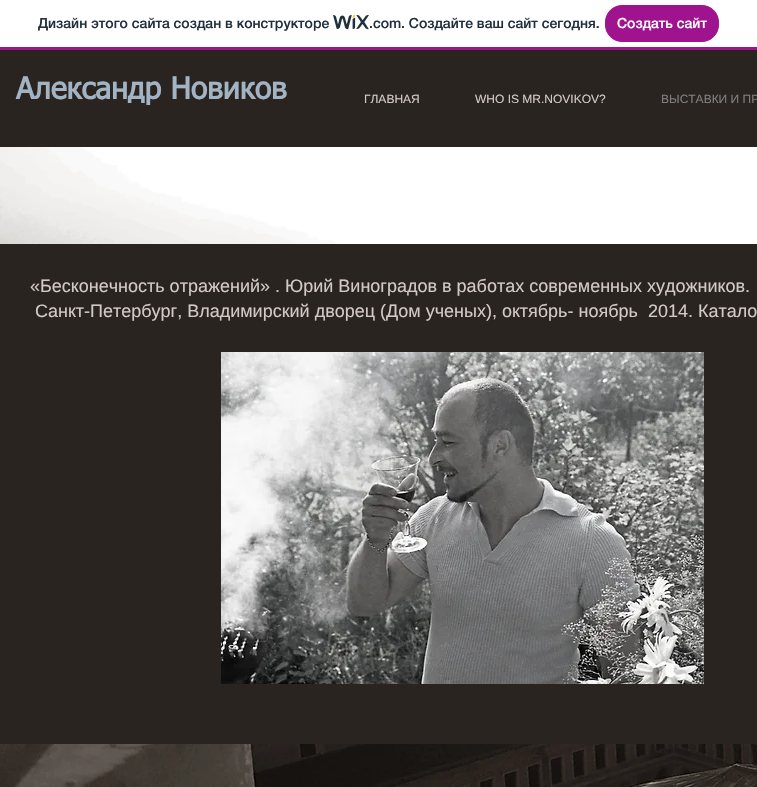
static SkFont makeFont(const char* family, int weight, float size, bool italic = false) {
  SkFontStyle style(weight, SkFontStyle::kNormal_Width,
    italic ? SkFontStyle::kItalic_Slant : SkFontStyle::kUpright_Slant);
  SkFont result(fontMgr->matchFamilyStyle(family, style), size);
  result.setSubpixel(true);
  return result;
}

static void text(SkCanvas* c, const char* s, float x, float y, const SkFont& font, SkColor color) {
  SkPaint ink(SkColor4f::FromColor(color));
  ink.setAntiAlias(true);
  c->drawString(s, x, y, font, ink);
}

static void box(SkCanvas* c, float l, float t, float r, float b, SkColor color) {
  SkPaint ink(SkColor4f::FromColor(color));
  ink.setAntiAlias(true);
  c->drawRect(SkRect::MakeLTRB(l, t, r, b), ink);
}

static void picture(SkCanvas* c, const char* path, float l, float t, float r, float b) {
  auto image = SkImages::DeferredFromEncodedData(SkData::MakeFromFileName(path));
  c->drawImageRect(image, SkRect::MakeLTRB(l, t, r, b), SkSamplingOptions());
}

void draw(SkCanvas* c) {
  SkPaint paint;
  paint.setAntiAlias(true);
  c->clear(0xffffffff);
  box(c, 0, 47, 757, 50, 0xffa0138e);
  SkFont face1 = makeFont("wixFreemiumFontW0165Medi", 500, 14);
  text(c, "Дизайн этого сайта создан в конструкторе", 38, 28, face1, 0xff20303c);
  picture(c, "img_01.png", 333, 15, 369, 30);
  SkFont face2 = makeFont("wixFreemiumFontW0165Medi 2", 500, 14);
  text(c, ".com", 369, 28, face2, 0xff20303c);
  text(c, ". Создайте ваш сайт сегодня.", 401, 28, face1, 0xff20303c);
  paint.setColor(0xffa0138e);
  c->drawRoundRect(SkRect::MakeLTRB(605.5f, 5.5f, 718.5f, 41.5f), 16.5f, 16.5f, paint);
  paint.setStyle(SkPaint::kStroke_Style);
  paint.setStrokeWidth(1);
  c->drawRoundRect(SkRect::MakeLTRB(605.5f, 5.5f, 718.5f, 41.5f), 16.5f, 16.5f, paint);
  text(c, "Создать сайт", 617, 28, face1, 0xffffffff);
  box(c, 0, 50, 757, 147, 0xff2a2421);
  SkFont face3 = makeFont("tahoma", 700, 30);
  text(c, "Александр Новиков", 16, 99, face3, 0xffa2b3c3);
  SkFont face4 = makeFont("Liberation Sans", 400, 12);
  text(c, "ГЛАВНАЯ", 364, 103, face4, 0xffd4cac5);
  text(c, "WHО IS MR.NOVIKOV?", 475, 103, face4, 0xffd4cac5);
  text(c, "ВЫСТАВКИ И ПР", 661, 103, face4, 0xff7f7f7f);
  picture(c, "img_03.png", 0, 147, 757, 787);
  box(c, 0, 244, 757, 744, 0xff2a2421);
  SkFont face5 = makeFont("Liberation Sans", 400, 18);
  text(c, "«Бесконечность отражений» . Юрий Виноградов в работах современных художников.", 30, 292, face5, 0xffd4cac5);
  text(c, "Санкт-Петербург, Владимирский дворец (Дом ученых), октябрь- ноябрь  2014. Катало", 35, 317, face5, 0xffd4cac5);
  picture(c, "img_02.png", 221, 352, 704, 684);
}
